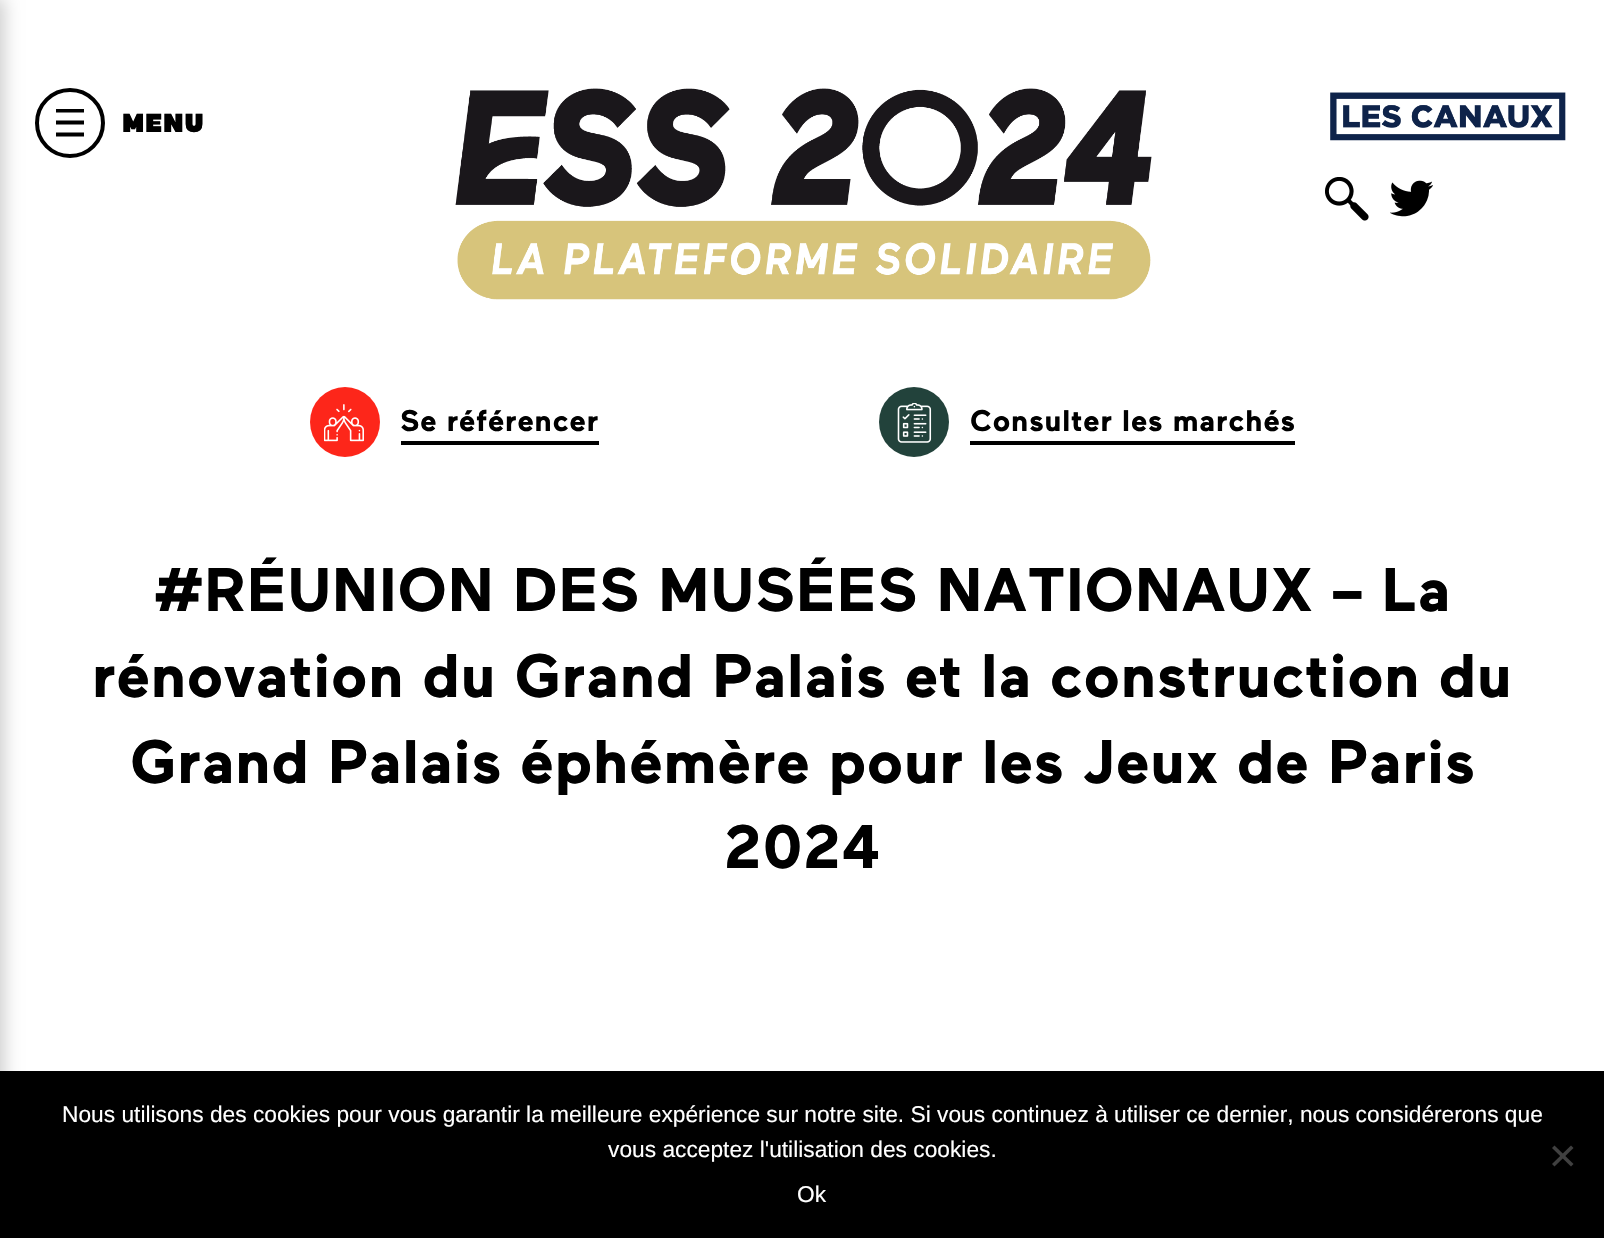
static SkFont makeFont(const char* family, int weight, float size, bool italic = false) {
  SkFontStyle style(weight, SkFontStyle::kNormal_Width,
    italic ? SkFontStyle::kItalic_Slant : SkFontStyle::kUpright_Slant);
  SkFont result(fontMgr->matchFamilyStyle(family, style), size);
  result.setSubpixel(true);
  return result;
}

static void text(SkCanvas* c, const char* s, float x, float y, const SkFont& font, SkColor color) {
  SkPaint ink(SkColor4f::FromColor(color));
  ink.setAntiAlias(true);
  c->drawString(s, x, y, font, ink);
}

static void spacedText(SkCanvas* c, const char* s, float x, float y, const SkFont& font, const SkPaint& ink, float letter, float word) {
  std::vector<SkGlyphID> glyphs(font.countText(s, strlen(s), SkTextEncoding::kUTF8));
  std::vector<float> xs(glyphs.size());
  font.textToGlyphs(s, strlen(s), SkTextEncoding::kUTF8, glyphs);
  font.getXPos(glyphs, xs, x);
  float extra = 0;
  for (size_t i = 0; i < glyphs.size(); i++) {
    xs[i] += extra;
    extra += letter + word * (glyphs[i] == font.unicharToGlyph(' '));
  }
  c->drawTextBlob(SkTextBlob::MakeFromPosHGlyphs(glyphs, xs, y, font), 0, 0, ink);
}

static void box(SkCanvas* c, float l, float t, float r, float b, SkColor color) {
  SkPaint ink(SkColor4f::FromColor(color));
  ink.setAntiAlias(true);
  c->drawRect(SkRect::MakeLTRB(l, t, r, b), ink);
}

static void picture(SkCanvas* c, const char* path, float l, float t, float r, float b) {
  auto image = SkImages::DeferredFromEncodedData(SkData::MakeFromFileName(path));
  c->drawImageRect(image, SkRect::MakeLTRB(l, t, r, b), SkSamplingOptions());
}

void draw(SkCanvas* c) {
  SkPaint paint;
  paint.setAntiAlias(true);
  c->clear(0xffffffff);
  paint.setColor(0x33000000);
  paint.setMaskFilter(SkMaskFilter::MakeBlur(kNormal_SkBlurStyle, 9));
  c->drawRect(SkRect::MakeLTRB(-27, -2, 4, 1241), paint);
  paint.setMaskFilter(nullptr);
  paint.setStyle(SkPaint::kStroke_Style);
  paint.setStrokeWidth(4);
  paint.setColor(0xff000000);
  c->drawCircle(70, 123, 33, paint);
  c->save();
  c->clipRect(SkRect::MakeLTRB(56, 109, 84, 137));
  paint.setStrokeWidth(4.1f);
  c->drawPath(SkPathBuilder().moveTo(84, 110.5f).lineTo(56, 110.5f).moveTo(84, 134.5f).lineTo(56, 134.5f).moveTo(84, 122.5f).lineTo(56, 122.5f).detach(), paint);
  c->restore();
  SkFont face1 = makeFont("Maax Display", 900, 26);
  paint.setStyle(SkPaint::kFill_Style);
  spacedText(c, "MENU", 123, 132, face1, paint, 2.5f, 0);
  picture(c, "img_01.png", 455, 88, 1152, 300);
  picture(c, "img_02.png", 1330, 92, 1566, 141);
  picture(c, "img_03.png", 1325, 177, 1369, 221);
  picture(c, "img_04.png", 1390, 180, 1433, 217);
  paint.setColor(0xfffd261a);
  c->drawCircle(345, 422, 35, paint);
  picture(c, "img_05.png", 324, 404, 364, 442);
  box(c, 401, 441, 599, 445, 0xff000000);
  SkFont face2 = makeFont("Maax", 700, 29.75f);
  paint.setColor(0xff000000);
  spacedText(c, "Se référencer", 400, 431, face2, paint, 0.9f, 0);
  paint.setColor(0xff22423b);
  c->drawCircle(914, 422, 35, paint);
  picture(c, "img_06.png", 897, 403, 932, 443);
  box(c, 970, 441, 1295, 445, 0xff000000);
  paint.setColor(0xff000000);
  spacedText(c, "Consulter les marchés", 970, 431, face2, paint, 0.9f, 0);
  SkFont face3 = makeFont("Maax", 700, 61.25f);
  spacedText(c, "#RÉUNION DES MUSÉES NATIONAUX – La", 154, 611, face3, paint, 0.9f, 0);
  spacedText(c, "rénovation du Grand Palais et la construction du", 92, 697, face3, paint, 0.9f, 0);
  spacedText(c, "Grand Palais éphémère pour les Jeux de Paris", 130, 783, face3, paint, 0.9f, 0);
  spacedText(c, "2024", 724, 868, face3, paint, 0.9f, 0);
  box(c, 0, 1071, 1604, 1238, 0xff000000);
  SkFont face4 = makeFont("Liberation Sans", 400, 22.75f);
  text(c, "Nous utilisons des cookies pour vous garantir la meilleure expérience sur notre site. Si vous continuez à utiliser ce dernier, nous considérerons que", 62, 1122, face4, 0xffffffff);
  text(c, "vous acceptez l'utilisation des cookies.", 608, 1157, face4, 0xffffffff);
  paint.setColor(0xff404040);
  c->drawPath(SkPathBuilder().moveTo(1571, 1145.5f).lineTo(1573.5f, 1148).lineTo(1554.5f, 1166.5f).lineTo(1552, 1164).close().detach(), paint);
  c->drawPath(SkPathBuilder().moveTo(1552, 1148).lineTo(1554.5f, 1145.5f).lineTo(1573.5f, 1164).lineTo(1571, 1166.5f).close().detach(), paint);
  text(c, "Ok", 797, 1202, face4, 0xffffffff);
}
